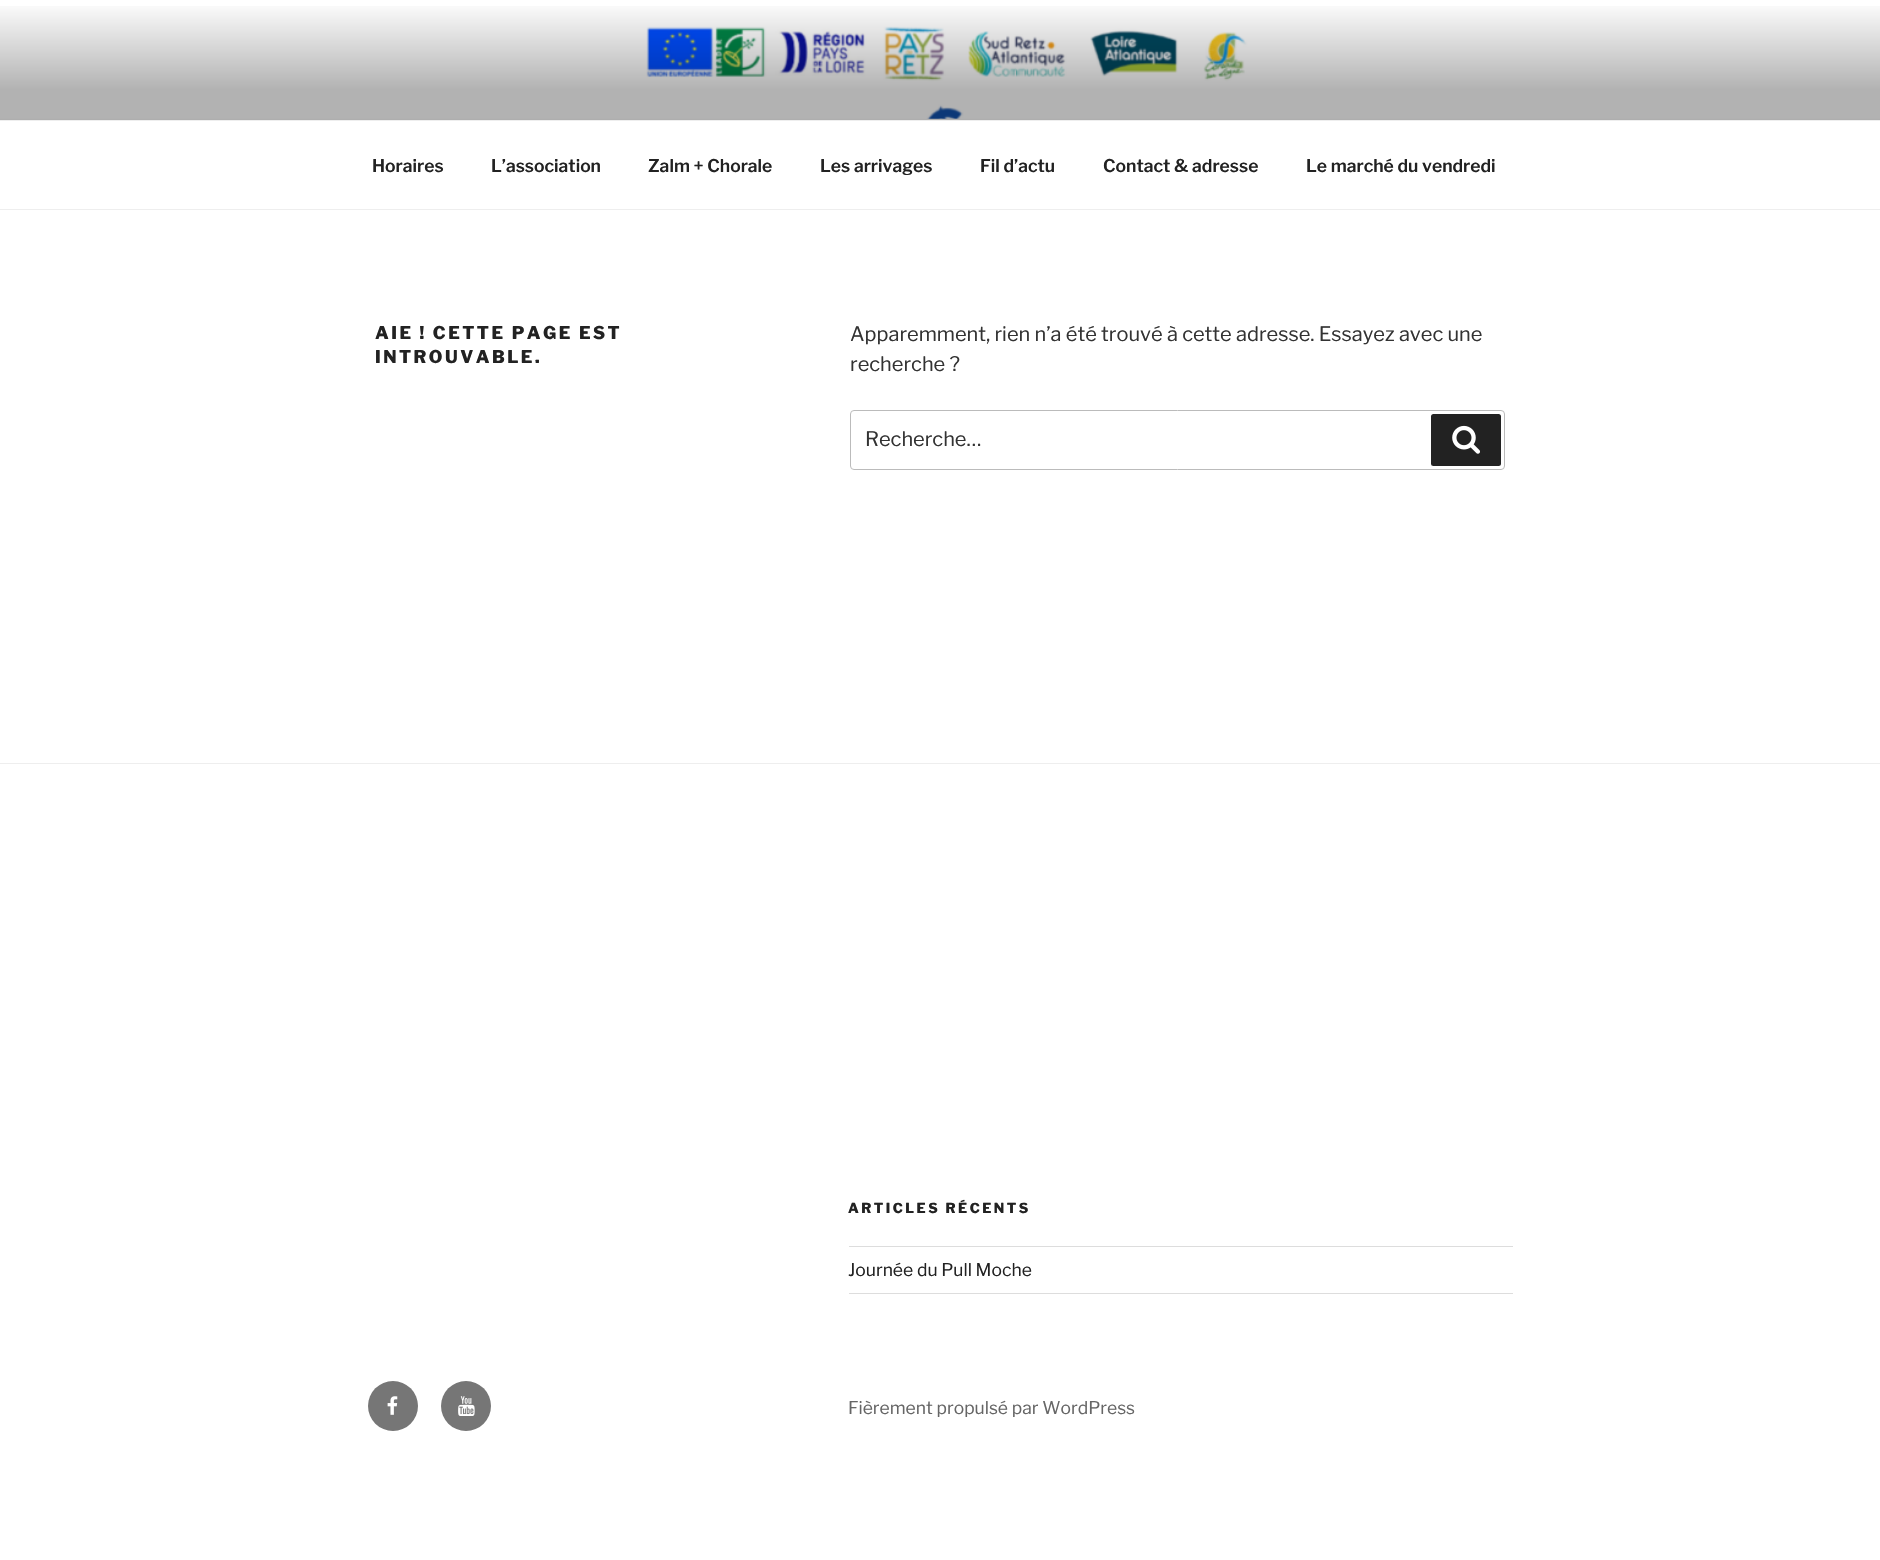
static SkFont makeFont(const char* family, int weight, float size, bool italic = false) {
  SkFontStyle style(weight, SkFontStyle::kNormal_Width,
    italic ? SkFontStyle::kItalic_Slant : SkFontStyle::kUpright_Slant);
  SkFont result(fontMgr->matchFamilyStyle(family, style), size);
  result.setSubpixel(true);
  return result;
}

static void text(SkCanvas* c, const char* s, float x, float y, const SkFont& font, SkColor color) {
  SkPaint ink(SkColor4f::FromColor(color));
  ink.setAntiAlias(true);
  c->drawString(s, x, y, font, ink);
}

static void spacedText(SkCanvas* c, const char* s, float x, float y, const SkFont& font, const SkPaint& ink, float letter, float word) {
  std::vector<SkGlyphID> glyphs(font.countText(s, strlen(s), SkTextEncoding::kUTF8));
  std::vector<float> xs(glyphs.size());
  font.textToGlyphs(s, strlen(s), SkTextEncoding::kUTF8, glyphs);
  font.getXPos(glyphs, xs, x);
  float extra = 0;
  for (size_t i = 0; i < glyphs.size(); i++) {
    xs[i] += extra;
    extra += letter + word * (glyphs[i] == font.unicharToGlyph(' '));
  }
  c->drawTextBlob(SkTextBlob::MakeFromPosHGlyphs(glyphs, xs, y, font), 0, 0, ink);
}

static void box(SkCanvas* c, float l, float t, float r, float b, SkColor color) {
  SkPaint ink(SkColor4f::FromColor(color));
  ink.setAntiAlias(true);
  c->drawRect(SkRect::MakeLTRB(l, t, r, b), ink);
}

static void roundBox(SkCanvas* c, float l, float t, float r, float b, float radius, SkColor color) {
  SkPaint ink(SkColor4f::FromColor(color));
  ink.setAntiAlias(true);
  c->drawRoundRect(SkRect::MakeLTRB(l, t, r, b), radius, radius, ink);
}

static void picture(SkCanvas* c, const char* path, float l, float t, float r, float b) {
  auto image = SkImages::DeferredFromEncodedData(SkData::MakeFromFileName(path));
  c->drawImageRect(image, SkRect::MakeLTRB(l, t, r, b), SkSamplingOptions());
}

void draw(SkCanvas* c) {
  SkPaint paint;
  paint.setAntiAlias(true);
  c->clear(0xffffffff);
  box(c, 0, 118, 1880, 120, 0xfffafafa);
  picture(c, "img_01.png", 0, 0, 1880, 119);
  {
    const SkColor colors[] = {0x00000000, 0x4d000000, 0x4d000000};
    const float stops[] = {0, 0.75f, 1};
    const SkPoint ends[] = {{940, 0}, {940, 120}};
    paint.setShader(SkGradientShader::MakeLinear(ends, colors, stops, 3, SkTileMode::kClamp));
    paint.setAlpha(255);
  }
  c->drawRect(SkRect::MakeLTRB(0, 6, 1880, 120), paint);
  box(c, 0, 120, 1880, 121, 0xffeeeeee);
  box(c, 0, 209, 1880, 210, 0xffeeeeee);
  SkFont face1 = makeFont("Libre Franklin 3", 100, 17.5f);
  text(c, "Horaires", 372, 172, face1, 0xff222222);
  text(c, "L’association", 491, 172, face1, 0xff222222);
  text(c, "Zalm + Chorale", 648, 172, face1, 0xff222222);
  text(c, "Les arrivages", 820, 172, face1, 0xff222222);
  text(c, "Fil d’actu", 980, 172, face1, 0xff222222);
  text(c, "Contact & adresse", 1103, 172, face1, 0xff222222);
  text(c, "Le marché du vendredi", 1306, 172, face1, 0xff222222);
  SkFont face2 = makeFont("Libre Franklin", 100, 17.5f);
  paint.setShader(nullptr);
  paint.setColor(0xff222222);
  spacedText(c, "AIE ! CETTE PAGE EST", 375, 339, face2, paint, 2.5f, 0);
  spacedText(c, "INTROUVABLE.", 375, 363, face2, paint, 2.5f, 0);
  SkFont face3 = makeFont("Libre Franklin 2", 100, 20);
  text(c, "Apparemment, rien n’a été trouvé à cette adresse. Essayez avec une", 850, 341, face3, 0xff333333);
  text(c, "recherche ?", 850, 371, face3, 0xff333333);
  paint.setStyle(SkPaint::kStroke_Style);
  paint.setStrokeWidth(1);
  paint.setColor(0xffbbbbbb);
  c->drawRoundRect(SkRect::MakeLTRB(850.5f, 410.5f, 1504.5f, 469.5f), 3.5f, 3.5f, paint);
  text(c, "Recherche…", 865, 446, face3, 0xff333333);
  roundBox(c, 1431, 414, 1501, 466, 2.5f, 0xff222222);
  picture(c, "img_02.png", 1452, 425, 1480, 454);
  box(c, 0, 763, 1880, 764, 0xffeeeeee);
  SkFont face4 = makeFont("Libre Franklin", 100, 13.75f);
  paint.setStyle(SkPaint::kFill_Style);
  paint.setColor(0xff222222);
  spacedText(c, "ARTICLES RÉCENTS", 848, 1213, face4, paint, 2.5f, 0);
  box(c, 849, 1246, 1513, 1247, 0xffdddddd);
  box(c, 849, 1293, 1513, 1294, 0xffdddddd);
  SkFont face5 = makeFont("Libre Franklin 2", 100, 17.5f);
  text(c, "Journée du Pull Moche", 848, 1276, face5, 0xff222222);
  paint.setColor(0xff767676);
  c->drawCircle(393, 1406, 25, paint);
  picture(c, "img_03.png", 387, 1396, 398, 1415);
  c->drawCircle(466, 1406, 25, paint);
  picture(c, "img_04.png", 458, 1396, 475, 1416);
  text(c, "Fièrement propulsé par WordPress", 848, 1414, face5, 0xff666666);
}
